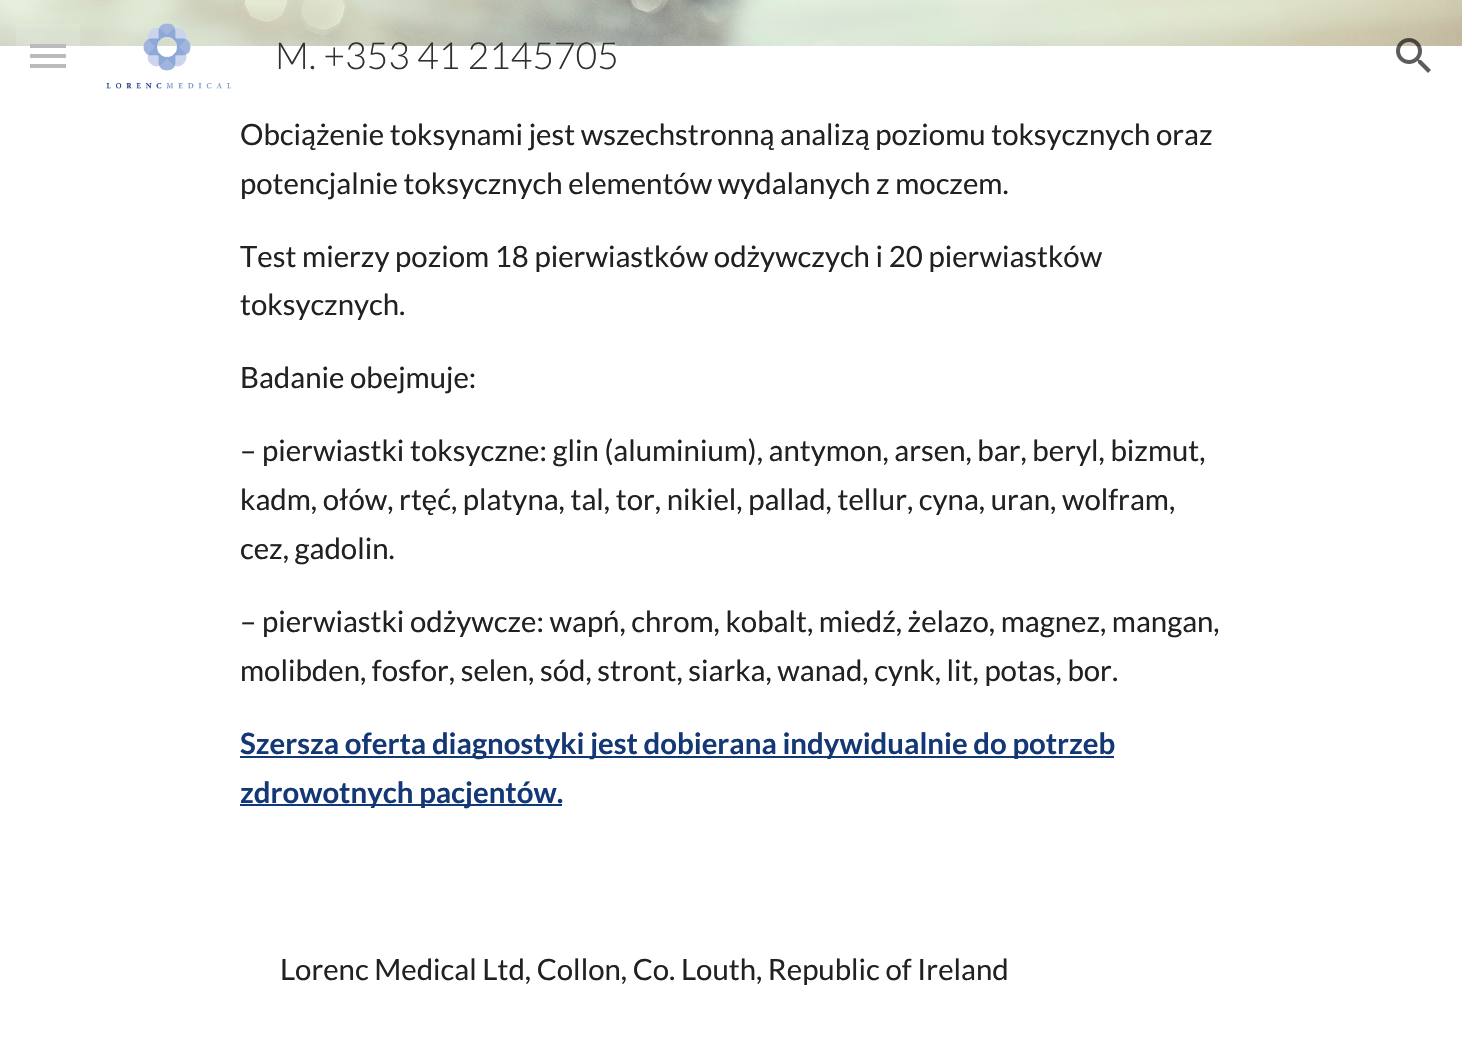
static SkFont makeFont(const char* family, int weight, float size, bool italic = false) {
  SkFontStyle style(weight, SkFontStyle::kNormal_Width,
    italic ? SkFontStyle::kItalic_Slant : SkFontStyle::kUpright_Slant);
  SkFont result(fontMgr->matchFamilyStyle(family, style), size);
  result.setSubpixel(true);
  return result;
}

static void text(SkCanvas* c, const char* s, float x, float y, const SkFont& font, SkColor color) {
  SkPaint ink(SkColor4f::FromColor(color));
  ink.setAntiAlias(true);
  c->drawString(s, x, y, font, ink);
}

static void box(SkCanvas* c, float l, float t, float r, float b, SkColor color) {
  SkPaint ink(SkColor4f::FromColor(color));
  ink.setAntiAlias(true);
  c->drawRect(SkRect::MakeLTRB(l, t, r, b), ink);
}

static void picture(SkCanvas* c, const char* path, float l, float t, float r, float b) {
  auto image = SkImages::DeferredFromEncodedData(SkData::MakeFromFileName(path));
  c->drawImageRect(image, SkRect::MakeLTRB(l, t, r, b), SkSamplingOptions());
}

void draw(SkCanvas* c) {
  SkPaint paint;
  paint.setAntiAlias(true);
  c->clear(0xffffffff);
  picture(c, "img_03.png", 0, 0, 1462, 46);
  box(c, 30, 44, 66, 48, 0xffb2b2b2);
  box(c, 30, 54, 66, 58, 0xffb2b2b2);
  box(c, 30, 64, 66, 68, 0xffb2b2b2);
  box(c, 16, 24, 80, 68, 0x1fffffff);
  picture(c, "img_01.png", 106, 23, 231, 89);
  SkFont face1 = makeFont("Lato", 300, 37.25f);
  text(c, "M. +353 41 2145705", 275, 69, face1, 0xff303130);
  picture(c, "img_02.png", 1396, 38, 1431, 73);
  SkFont face2 = makeFont("Lato", 400, 29.35f);
  text(c, "Obciążenie toksynami jest wszechstronną analizą poziomu toksycznych oraz", 240, 145, face2, 0xff212121);
  text(c, "potencjalnie toksycznych elementów wydalanych z moczem.", 240, 194, face2, 0xff212121);
  text(c, "Test mierzy poziom 18 pierwiastków odżywczych i 20 pierwiastków", 240, 267, face2, 0xff212121);
  text(c, "toksycznych.", 240, 315, face2, 0xff212121);
  text(c, "Badanie obejmuje:", 240, 388, face2, 0xff212121);
  text(c, "– pierwiastki toksyczne: glin (aluminium), antymon, arsen, bar, beryl, bizmut,", 240, 461, face2, 0xff212121);
  text(c, "kadm, ołów, rtęć, platyna, tal, tor, nikiel, pallad, tellur, cyna, uran, wolfram,", 240, 510, face2, 0xff212121);
  text(c, "cez, gadolin.", 240, 559, face2, 0xff212121);
  text(c, "– pierwiastki odżywcze: wapń, chrom, kobalt, miedź, żelazo, magnez, mangan,", 240, 632, face2, 0xff212121);
  text(c, "molibden, fosfor, selen, sód, stront, siarka, wanad, cynk, lit, potas, bor.", 240, 681, face2, 0xff212121);
  box(c, 240, 756, 1114, 758, 0xff143876);
  SkFont face3 = makeFont("Lato", 700, 29.35f);
  text(c, "Szersza oferta diagnostyki jest dobierana indywidualnie do potrzeb", 240, 754, face3, 0xff143876);
  box(c, 240, 804, 562, 806, 0xff143876);
  text(c, "zdrowotnych pacjentów.", 240, 803, face3, 0xff143876);
  text(c, "Lorenc Medical Ltd, Collon, Co. Louth, Republic of Ireland", 280, 980, face2, 0xff212121);
}
